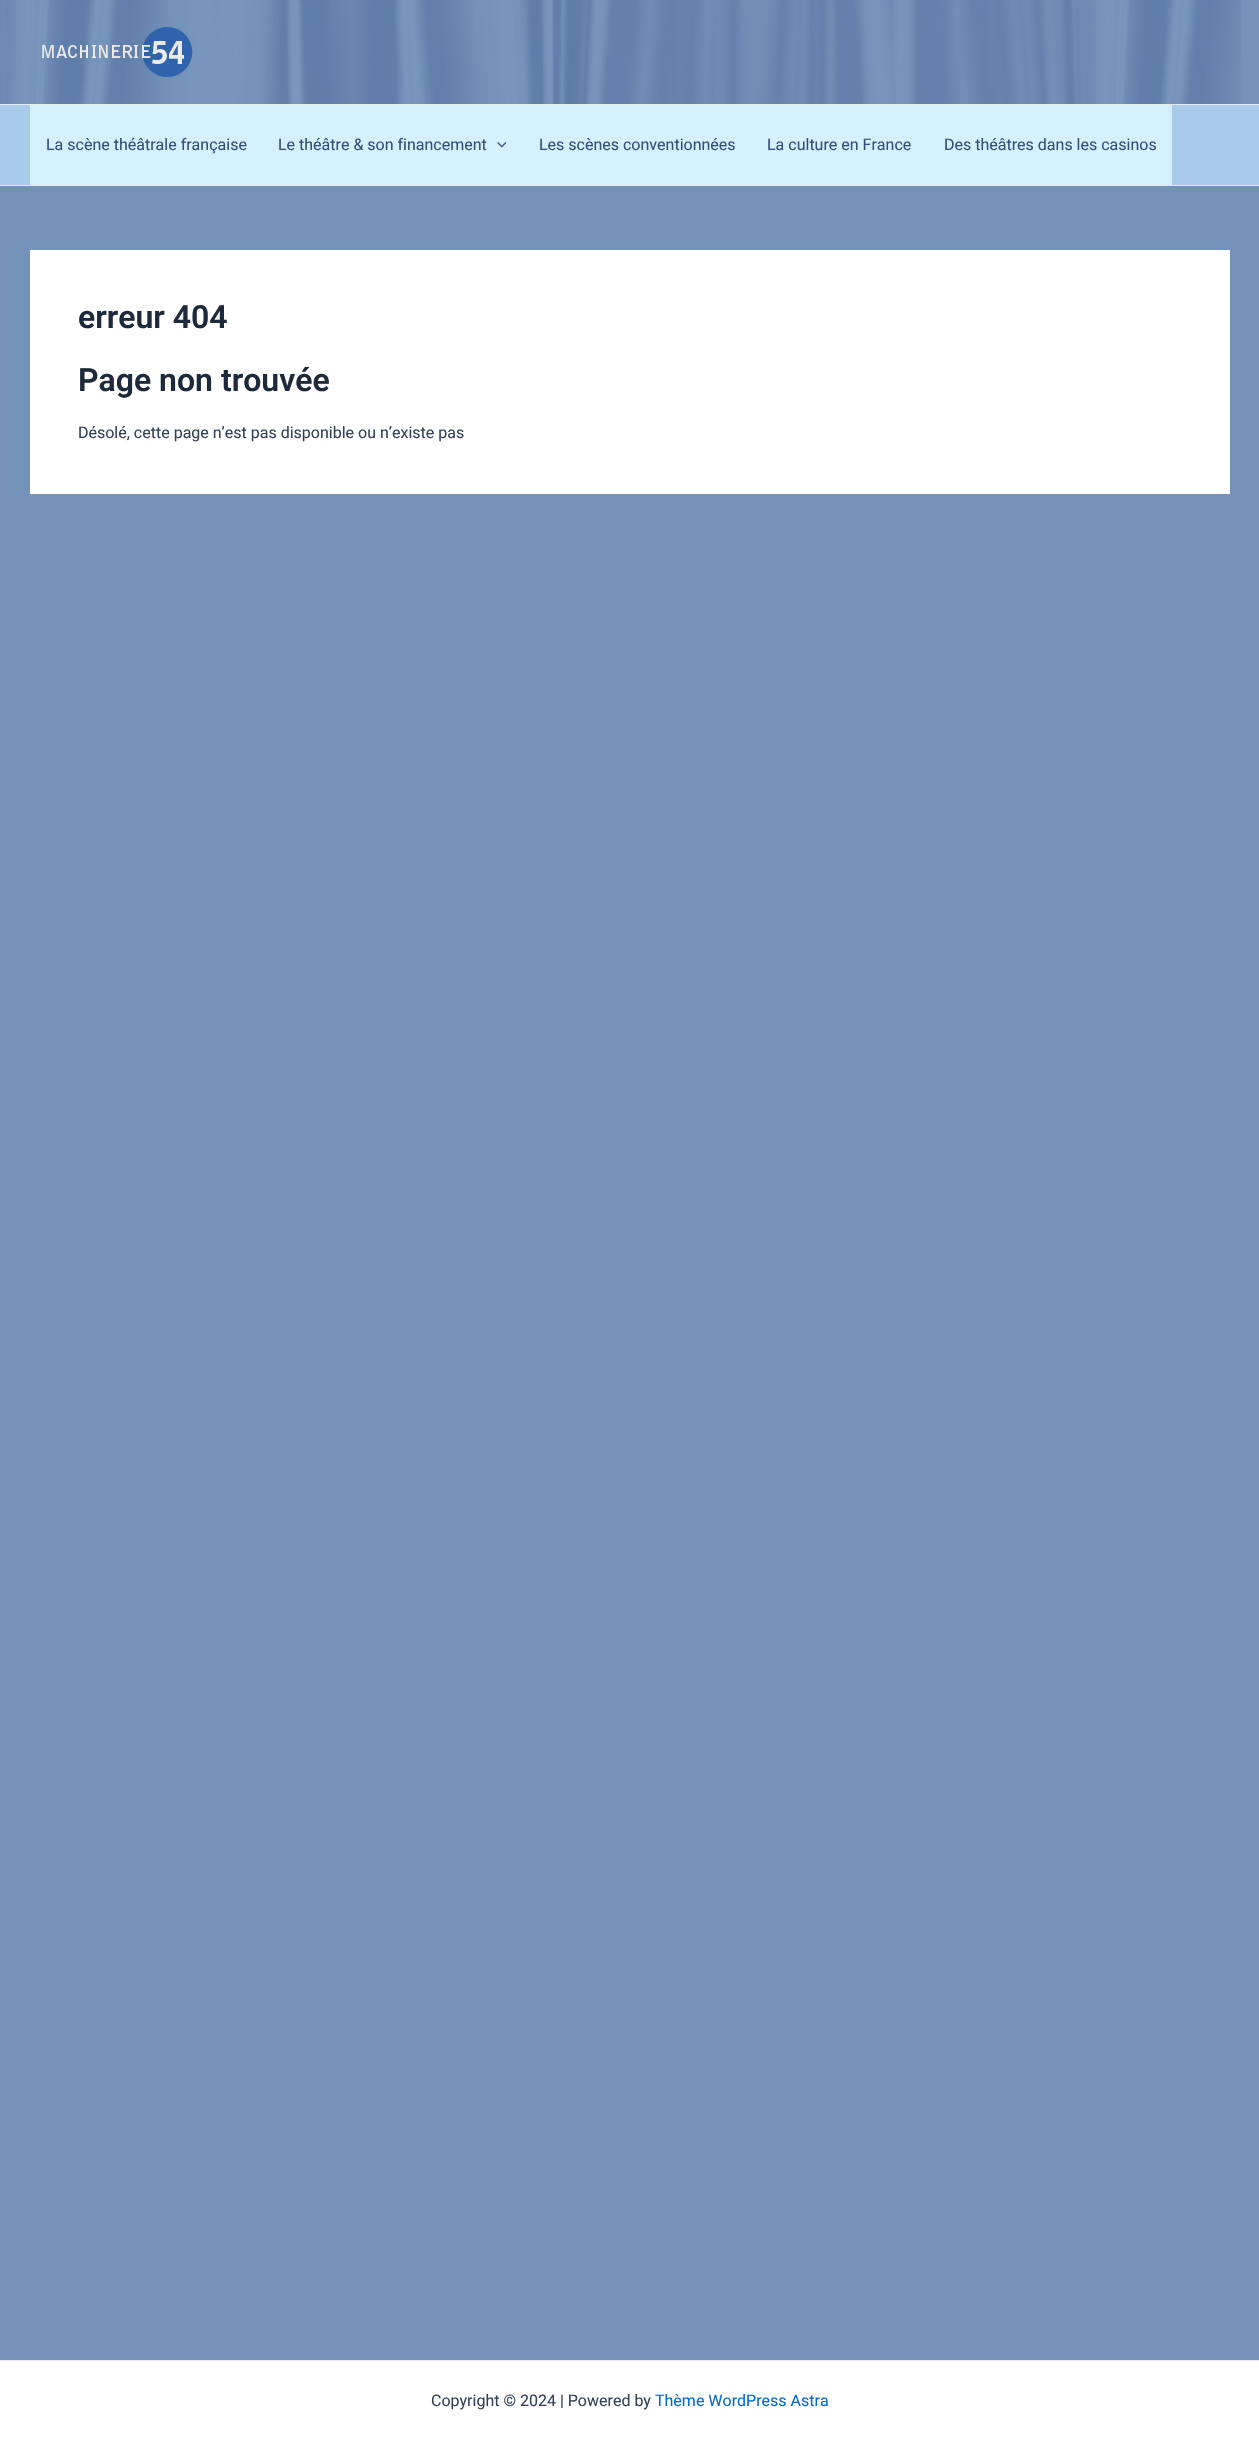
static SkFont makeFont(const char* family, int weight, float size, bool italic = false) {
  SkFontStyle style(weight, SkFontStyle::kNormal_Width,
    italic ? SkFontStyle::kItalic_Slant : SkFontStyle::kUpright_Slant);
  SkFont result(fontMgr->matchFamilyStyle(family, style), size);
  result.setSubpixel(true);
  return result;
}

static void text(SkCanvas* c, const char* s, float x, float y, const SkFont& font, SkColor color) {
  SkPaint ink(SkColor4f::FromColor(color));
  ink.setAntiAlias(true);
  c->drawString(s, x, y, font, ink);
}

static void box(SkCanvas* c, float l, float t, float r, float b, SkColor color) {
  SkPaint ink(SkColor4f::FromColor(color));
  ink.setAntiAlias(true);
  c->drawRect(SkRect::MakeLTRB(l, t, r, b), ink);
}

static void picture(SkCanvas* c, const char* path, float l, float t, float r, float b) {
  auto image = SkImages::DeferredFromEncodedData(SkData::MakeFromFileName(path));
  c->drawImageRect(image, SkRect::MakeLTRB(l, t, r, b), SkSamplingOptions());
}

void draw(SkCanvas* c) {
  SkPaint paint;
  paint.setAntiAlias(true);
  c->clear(0xff7391b9);
  picture(c, "img_01.png", 0, 0, 1241, 104);
  box(c, 0, 104, 1259, 105, 0xffeaeaea);
  picture(c, "img_02.png", 42, 27, 193, 77);
  box(c, 0, 105, 1259, 185, 0xffa7caed);
  box(c, 0, 185, 1259, 186, 0xffeaeaea);
  box(c, 30, 105, 1172, 185, 0xffd5f1ff);
  SkFont face1 = makeFont("Roboto", 400, 16);
  text(c, "La scène théâtrale française", 46, 150, face1, 0xff314f79);
  text(c, "Le théâtre & son financement", 278, 150, face1, 0xff314f79);
  picture(c, "img_03.png", 497, 142, 507, 148);
  text(c, "Les scènes conventionnées", 539, 150, face1, 0xff314f79);
  text(c, "La culture en France", 767, 150, face1, 0xff314f79);
  text(c, "Des théâtres dans les casinos", 944, 150, face1, 0xff314f79);
  box(c, 30, 250, 1230, 494, 0xffffffff);
  SkFont face2 = makeFont("Roboto", 600, 32);
  text(c, "erreur 404", 78, 328, face2, 0xff1e293b);
  text(c, "Page non trouvée", 78, 391, face2, 0xff1e293b);
  text(c, "Désolé, cette page n’est pas disponible ou n’existe pas", 78, 438, face1, 0xff334155);
  box(c, 0, 2361, 1259, 2440, 0xffffffff);
  box(c, 0, 2360, 1259, 2361, 0xffe2e8f0);
  text(c, "Copyright © 2024 | Powered by", 431, 2406, face1, 0xff334155);
  text(c, "Thème WordPress Astra", 655, 2406, face1, 0xff046bd2);
}
